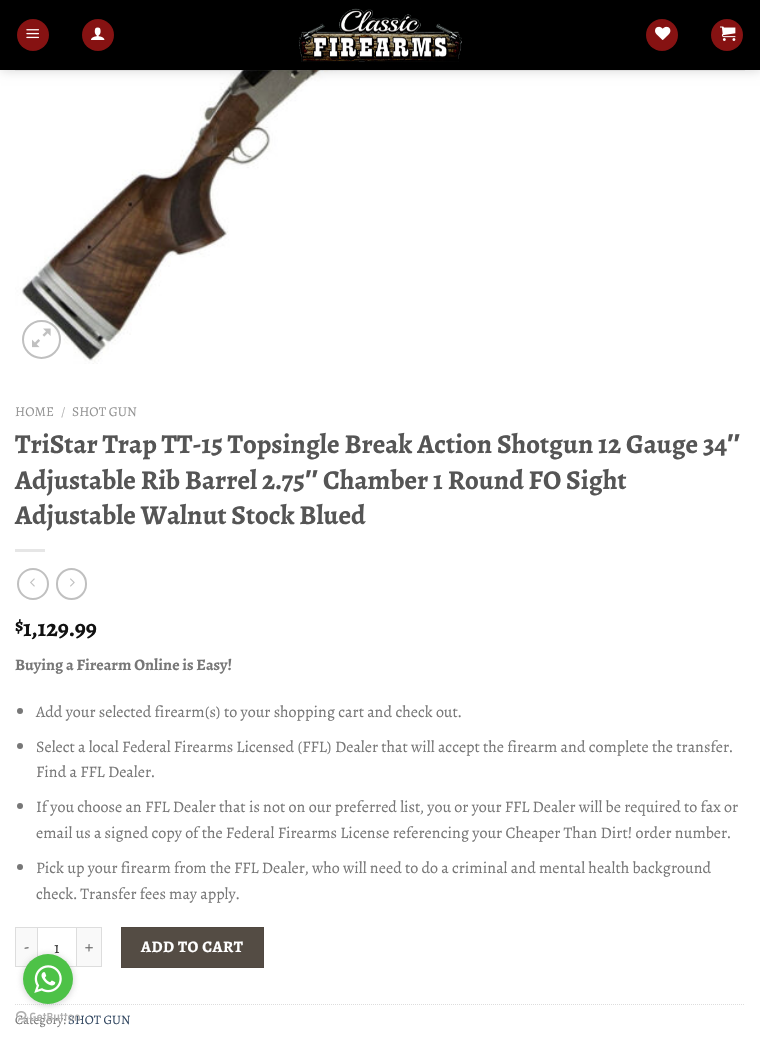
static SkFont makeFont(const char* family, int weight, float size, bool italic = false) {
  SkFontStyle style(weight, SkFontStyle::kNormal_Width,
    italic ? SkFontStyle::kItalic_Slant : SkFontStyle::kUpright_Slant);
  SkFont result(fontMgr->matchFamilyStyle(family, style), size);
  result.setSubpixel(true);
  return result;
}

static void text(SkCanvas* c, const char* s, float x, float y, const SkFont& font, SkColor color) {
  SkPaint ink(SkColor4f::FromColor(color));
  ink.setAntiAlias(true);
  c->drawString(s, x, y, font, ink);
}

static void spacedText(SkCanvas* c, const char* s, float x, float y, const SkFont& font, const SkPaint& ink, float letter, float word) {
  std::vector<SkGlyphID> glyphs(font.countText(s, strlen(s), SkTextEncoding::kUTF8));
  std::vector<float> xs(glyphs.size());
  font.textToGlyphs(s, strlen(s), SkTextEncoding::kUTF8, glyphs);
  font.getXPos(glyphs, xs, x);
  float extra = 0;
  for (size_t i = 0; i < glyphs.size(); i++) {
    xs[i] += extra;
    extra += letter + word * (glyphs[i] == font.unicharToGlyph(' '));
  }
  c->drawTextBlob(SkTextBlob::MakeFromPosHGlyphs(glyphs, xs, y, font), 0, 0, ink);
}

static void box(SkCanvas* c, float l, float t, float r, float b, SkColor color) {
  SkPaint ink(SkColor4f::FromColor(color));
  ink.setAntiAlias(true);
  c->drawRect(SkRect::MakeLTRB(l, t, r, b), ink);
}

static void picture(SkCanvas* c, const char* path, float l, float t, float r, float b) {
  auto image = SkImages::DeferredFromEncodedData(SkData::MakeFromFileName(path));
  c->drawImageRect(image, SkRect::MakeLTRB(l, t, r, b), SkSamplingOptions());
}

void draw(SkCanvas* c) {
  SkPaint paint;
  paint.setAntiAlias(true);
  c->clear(0xffffffff);
  picture(c, "img_06.png", 15, 70, 405, 364);
  paint.setColor(0x26000000);
  paint.setMaskFilter(SkMaskFilter::MakeBlur(kNormal_SkBlurStyle, 5));
  c->drawRect(SkRect::MakeLTRB(1, 1, 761, 71), paint);
  paint.setMaskFilter(nullptr);
  box(c, 0, 0, 760, 70, 0xff000000);
  paint.setColor(0xff861212);
  c->drawCircle(33, 35, 16, paint);
  paint.setStyle(SkPaint::kStroke_Style);
  paint.setStrokeWidth(1);
  paint.setColor(0x0d000000);
  c->drawRect(SkRect::MakeLTRB(17.5f, 19.5f, 48.5f, 50.5f), paint);
  picture(c, "img_01.png", 26, 29, 39, 39);
  paint.setStyle(SkPaint::kFill_Style);
  paint.setColor(0xff861212);
  c->drawCircle(98, 35, 16, paint);
  paint.setStyle(SkPaint::kStroke_Style);
  paint.setColor(0x0d000000);
  c->drawRect(SkRect::MakeLTRB(82.5f, 19.5f, 113.5f, 50.5f), paint);
  picture(c, "img_02.png", 91, 27, 105, 40);
  picture(c, "img_03.png", 298, 8, 462, 62);
  paint.setStyle(SkPaint::kFill_Style);
  paint.setColor(0xff861212);
  c->drawCircle(662, 35, 16, paint);
  paint.setStyle(SkPaint::kStroke_Style);
  paint.setColor(0x0d000000);
  c->drawRect(SkRect::MakeLTRB(646.5f, 19.5f, 677.5f, 50.5f), paint);
  picture(c, "img_04.png", 655, 26, 671, 40);
  paint.setStyle(SkPaint::kFill_Style);
  paint.setColor(0xff861212);
  c->drawCircle(727, 35, 16, paint);
  paint.setStyle(SkPaint::kStroke_Style);
  paint.setColor(0x0d000000);
  c->drawRect(SkRect::MakeLTRB(711.5f, 19.5f, 742.5f, 50.5f), paint);
  picture(c, "img_05.png", 720, 26, 736, 41);
  box(c, 15, 70, 745, 71, 0x1a777777);
  paint.setStrokeWidth(2);
  paint.setColor(0xffc0c0c0);
  c->drawCircle(41.5f, 339.5f, 18.5f, paint);
  picture(c, "img_07.png", 32, 328, 51, 348);
  SkFont face1 = makeFont("Sahitya", 400, 13.5f);
  text(c, "HOME", 15, 416, face1, 0xff949494);
  text(c, "/", 61, 416, face1, 0xffb2b2b2);
  text(c, "SHOT GUN", 72, 416, face1, 0xff949494);
  SkFont face2 = makeFont("Sahitya", 700, 27.2f);
  text(c, "TriStar Trap TT-15 Topsingle Break Action Shotgun 12 Gauge 34", 15, 453, face2, 0xff555555);
  SkFont face3 = makeFont("Liberation Sans", 700, 27.2f);
  text(c, "″", 727, 453, face3, 0xff555555);
  text(c, "Adjustable Rib Barrel 2.75", 15, 489, face2, 0xff555555);
  text(c, "″", 305, 489, face3, 0xff555555);
  text(c, "Chamber 1 Round FO Sight", 323, 489, face2, 0xff555555);
  text(c, "Adjustable Walnut Stock Blued", 15, 524, face2, 0xff555555);
  box(c, 15, 549, 45, 552, 0xffe6e6e6);
  c->drawCircle(33, 584, 15, paint);
  picture(c, "img_08.png", 30, 578, 35, 587);
  c->drawRoundRect(SkRect::MakeLTRB(57, 569, 86, 599), 14.5f, 14.5f, paint);
  picture(c, "img_09.png", 70, 578, 75, 587);
  SkFont face4 = makeFont("Sahitya", 700, 18);
  text(c, "$", 15, 631, face4, 0xff111111);
  SkFont face5 = makeFont("Sahitya", 700, 24);
  text(c, "1,129.99", 23, 636, face5, 0xff111111);
  SkFont face6 = makeFont("Sahitya", 700, 16);
  text(c, "Buying a Firearm Online is Easy!", 15, 670, face6, 0xff777777);
  paint.setStyle(SkPaint::kFill_Style);
  paint.setColor(0xff777777);
  c->drawCircle(20, 711, 3, paint);
  SkFont face7 = makeFont("Sahitya", 400, 16);
  text(c, "Add your selected firearm(s) to your shopping cart and check out.", 36, 717, face7, 0xff777777);
  c->drawCircle(20, 746, 3, paint);
  text(c, "Select a local Federal Firearms Licensed (FFL) Dealer that will accept the firearm and complete the transfer.", 36, 752, face7, 0xff777777);
  text(c, "Find a FFL Dealer.", 36, 777, face7, 0xff777777);
  c->drawCircle(20, 806, 3, paint);
  text(c, "If you choose an FFL Dealer that is not on our preferred list, you or your FFL Dealer will be required to fax or", 36, 812, face7, 0xff777777);
  text(c, "email us a signed copy of the Federal Firearms License referencing your Cheaper Than Dirt! order number.", 36, 838, face7, 0xff777777);
  c->drawCircle(20, 867, 3, paint);
  text(c, "Pick up your firearm from the FFL Dealer, who will need to do a criminal and mental health background", 36, 873, face7, 0xff777777);
  text(c, "check. Transfer fees may apply.", 36, 899, face7, 0xff777777);
  box(c, 16, 928, 37, 966, 0xfff9f9f9);
  box(c, 15, 927, 37, 928, 0xffdddddd);
  box(c, 15, 966, 27, 967, 0xffdddddd);
  box(c, 15, 927, 16, 967, 0xffdddddd);
  text(c, "-", 24, 952, face7, 0xff666666);
  paint.setStyle(SkPaint::kStroke_Style);
  paint.setStrokeWidth(1);
  paint.setColor(0xffdddddd);
  c->drawRect(SkRect::MakeLTRB(37.5f, 927.5f, 76.5f, 966.5f), paint);
  text(c, "1", 54, 953, face7, 0xff333333);
  box(c, 77, 928, 101, 966, 0xfff9f9f9);
  box(c, 77, 927, 102, 928, 0xffdddddd);
  box(c, 101, 927, 102, 967, 0xffdddddd);
  box(c, 77, 966, 102, 967, 0xffdddddd);
  text(c, "+", 85, 952, face7, 0xff666666);
  paint.setStyle(SkPaint::kFill_Style);
  paint.setColor(0xff544c44);
  c->drawRect(SkRect::MakeLTRB(121.5f, 927.5f, 263.5f, 967.5f), paint);
  paint.setStyle(SkPaint::kStroke_Style);
  paint.setColor(0xff504841);
  c->drawRect(SkRect::MakeLTRB(121.5f, 927.5f, 263.5f, 967.5f), paint);
  paint.setStyle(SkPaint::kFill_Style);
  paint.setColor(0xffffffff);
  spacedText(c, "ADD TO CART", 141, 952, face6, paint, 0.5f, 0);
  paint.setStyle(SkPaint::kStroke_Style);
  paint.setColor(0xffdddddd);
  paint.setPathEffect(SkDashPathEffect::Make({{1, 1}}, 0));
  c->drawPath(SkPathBuilder().moveTo(15, 1004.5f).lineTo(745, 1004.5f).detach(), paint);
  paint.setPathEffect(nullptr);
  SkFont face8 = makeFont("Sahitya", 400, 13);
  text(c, "Category:", 15, 1024, face8, 0xff777777);
  text(c, "SHOT GUN", 68, 1024, face8, 0xff334862);
  picture(c, "img_11.png", 16, 1011, 80, 1022);
  paint.setStyle(SkPaint::kFill_Style);
  paint.setColor(0x66888888);
  paint.setMaskFilter(SkMaskFilter::MakeBlur(kNormal_SkBlurStyle, 3.5f));
  c->drawRoundRect(SkRect::MakeLTRB(23, 955, 73, 1005), 25, 25, paint);
  paint.setMaskFilter(nullptr);
  paint.setColor(0xff4dc247);
  c->drawCircle(48, 979, 25, paint);
  picture(c, "img_10.png", 34, 965, 62, 993);
}
